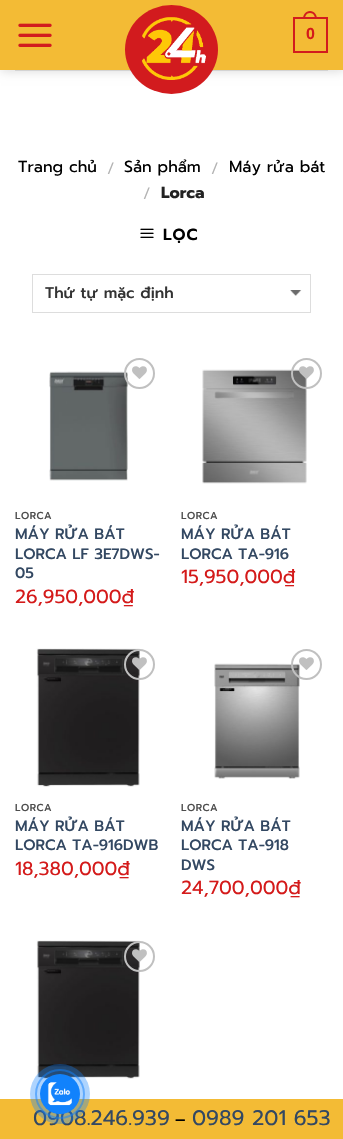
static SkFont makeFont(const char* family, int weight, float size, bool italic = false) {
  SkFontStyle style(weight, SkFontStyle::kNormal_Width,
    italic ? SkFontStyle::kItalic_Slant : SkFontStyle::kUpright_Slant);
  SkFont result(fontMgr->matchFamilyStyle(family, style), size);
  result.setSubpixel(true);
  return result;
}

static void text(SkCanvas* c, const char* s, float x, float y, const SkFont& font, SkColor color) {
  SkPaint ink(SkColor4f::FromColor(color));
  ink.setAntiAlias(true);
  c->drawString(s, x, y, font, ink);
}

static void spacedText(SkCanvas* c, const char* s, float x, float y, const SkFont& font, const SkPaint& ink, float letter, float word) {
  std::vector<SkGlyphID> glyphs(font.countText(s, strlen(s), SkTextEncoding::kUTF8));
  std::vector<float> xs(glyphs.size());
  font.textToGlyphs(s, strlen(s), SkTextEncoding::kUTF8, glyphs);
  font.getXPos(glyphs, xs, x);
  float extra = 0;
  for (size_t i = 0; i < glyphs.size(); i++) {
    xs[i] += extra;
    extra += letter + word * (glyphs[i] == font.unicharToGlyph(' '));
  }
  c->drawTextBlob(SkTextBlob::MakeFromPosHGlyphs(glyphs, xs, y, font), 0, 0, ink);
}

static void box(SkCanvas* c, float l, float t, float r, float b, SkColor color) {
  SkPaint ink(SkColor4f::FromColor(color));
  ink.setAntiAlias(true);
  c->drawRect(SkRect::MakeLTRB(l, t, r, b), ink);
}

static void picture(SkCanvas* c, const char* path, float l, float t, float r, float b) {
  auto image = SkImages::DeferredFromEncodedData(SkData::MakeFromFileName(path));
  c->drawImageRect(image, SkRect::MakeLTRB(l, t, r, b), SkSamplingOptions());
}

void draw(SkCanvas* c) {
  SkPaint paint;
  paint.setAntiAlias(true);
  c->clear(0xffffffff);
  paint.setColor(0x26000000);
  paint.setMaskFilter(SkMaskFilter::MakeBlur(kNormal_SkBlurStyle, 5));
  c->drawRect(SkRect::MakeLTRB(1, 1, 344, 71), paint);
  paint.setMaskFilter(nullptr);
  box(c, 0, 0, 343, 70, 0xfff3bb35);
  picture(c, "img_01.png", 18, 23, 52, 47);
  box(c, 15, 70, 328, 71, 0xffd3d3d3);
  paint.setColor(0xffd21b1e);
  c->drawOval(SkRect::MakeLTRB(125, 5, 218, 94), paint);
  picture(c, "img_02.png", 142, 17, 206, 80);
  paint.setStyle(SkPaint::kStroke_Style);
  paint.setStrokeWidth(2);
  c->drawRect(SkRect::MakeLTRB(294, 18, 327, 52), paint);
  paint.setStyle(SkPaint::kFill_Style);
  c->drawPath(SkPathBuilder(SkPathFillType::kEvenOdd).moveTo(310, 11).cubicTo(314.5f, 11, 317, 15, 317, 19).lineTo(303, 19).cubicTo(303, 15, 305.5f, 11, 310, 11).close().moveTo(310, 13).cubicTo(313.5f, 13, 315, 16, 315, 19).lineTo(305, 19).cubicTo(305, 16, 306.5f, 13, 310, 13).close().detach(), paint);
  SkFont face1 = makeFont("Liberation Sans", 700, 16);
  text(c, "0", 306, 39, face1, 0xffd41a1a);
  SkFont face2 = makeFont("Prompt", 400, 16);
  text(c, "Trang chủ", 18, 172, face2, 0xff000000);
  SkFont face3 = makeFont("Prompt", 300, 16);
  text(c, "/", 107, 174, face3, 0xffb2b2b2);
  text(c, "Sản phẩm", 124, 172, face2, 0xff000000);
  text(c, "/", 211, 174, face3, 0xffb2b2b2);
  text(c, "Máy rửa bát", 229, 172, face2, 0xff000000);
  text(c, "/", 143, 199, face3, 0xffb2b2b2);
  SkFont face4 = makeFont("Prompt", 700, 16);
  text(c, "Lorca", 161, 198, face4, 0xff222222);
  picture(c, "img_03.png", 140, 228, 154, 238);
  SkFont face5 = makeFont("Prompt", 600, 16);
  paint.setColor(0xff000000);
  spacedText(c, "LỌC", 163, 240, face5, paint, 1, 0);
  picture(c, "img_04.png", 290, 290, 302, 296);
  paint.setStyle(SkPaint::kStroke_Style);
  paint.setStrokeWidth(1);
  paint.setColor(0xffdddddd);
  c->drawRect(SkRect::MakeLTRB(32.5f, 274.5f, 310.5f, 312.5f), paint);
  SkFont face6 = makeFont("Prompt", 500, 15.5f);
  text(c, "Thứ tự mặc định", 45, 298, face6, 0xff333333);
  picture(c, "img_05.png", 49, 371, 128, 481);
  paint.setStrokeWidth(2);
  paint.setColor(0xffc0c0c0);
  c->drawCircle(139.5f, 373.5f, 14.5f, paint);
  picture(c, "img_06.png", 132, 366, 147, 379);
  SkFont face7 = makeFont("Prompt", 500, 10);
  paint.setStyle(SkPaint::kFill_Style);
  paint.setColor(0xff4d4d4d);
  spacedText(c, "LORCA", 15, 519, face7, paint, 0.5f, 0);
  SkFont face8 = makeFont("Prompt", 500, 15);
  text(c, "MÁY RỬA BÁT", 15, 539, face8, 0xff334862);
  text(c, "LORCA LF 3E7DWS-", 15, 559, face8, 0xff334862);
  text(c, "05", 15, 578, face8, 0xff334862);
  SkFont face9 = makeFont("Prompt", 400, 19);
  text(c, "26,950,000₫", 15, 603, face9, 0xffd41a1a);
  picture(c, "img_08.png", 202, 369, 307, 484);
  paint.setStyle(SkPaint::kStroke_Style);
  paint.setColor(0xffc0c0c0);
  c->drawCircle(306.5f, 373.5f, 14.5f, paint);
  picture(c, "img_07.png", 299, 366, 314, 379);
  paint.setStyle(SkPaint::kFill_Style);
  paint.setColor(0xff4d4d4d);
  spacedText(c, "LORCA", 181, 519, face7, paint, 0.5f, 0);
  text(c, "MÁY RỬA BÁT", 181, 539, face8, 0xff334862);
  text(c, "LORCA TA-916", 181, 559, face8, 0xff334862);
  text(c, "15,950,000₫", 181, 583, face9, 0xffd41a1a);
  picture(c, "img_09.png", 36, 648, 140, 787);
  paint.setStyle(SkPaint::kStroke_Style);
  paint.setColor(0xffc0c0c0);
  c->drawCircle(139.5f, 664.5f, 14.5f, paint);
  picture(c, "img_10.png", 132, 657, 147, 670);
  paint.setStyle(SkPaint::kFill_Style);
  paint.setColor(0xff4d4d4d);
  spacedText(c, "LORCA", 15, 811, face7, paint, 0.5f, 0);
  text(c, "MÁY RỬA BÁT", 15, 831, face8, 0xff334862);
  text(c, "LORCA TA-916DWB", 15, 850, face8, 0xff334862);
  text(c, "18,380,000₫", 15, 875, face9, 0xffd41a1a);
  picture(c, "img_11.png", 214, 663, 300, 779);
  paint.setStyle(SkPaint::kStroke_Style);
  paint.setColor(0xffc0c0c0);
  c->drawCircle(306.5f, 664.5f, 14.5f, paint);
  picture(c, "img_12.png", 299, 657, 314, 670);
  paint.setStyle(SkPaint::kFill_Style);
  paint.setColor(0xff4d4d4d);
  spacedText(c, "LORCA", 181, 811, face7, paint, 0.5f, 0);
  text(c, "MÁY RỬA BÁT", 181, 831, face8, 0xff334862);
  text(c, "LORCA TA-918", 181, 850, face8, 0xff334862);
  text(c, "DWS", 181, 870, face8, 0xff334862);
  text(c, "24,700,000₫", 181, 894, face9, 0xffd41a1a);
  picture(c, "img_09.png", 36, 940, 140, 1079);
  paint.setStyle(SkPaint::kStroke_Style);
  paint.setColor(0xffc0c0c0);
  c->drawCircle(139.5f, 956.5f, 14.5f, paint);
  picture(c, "img_10.png", 132, 949, 147, 962);
  box(c, 0, 1099, 343, 1139, 0xfff3bb35);
  SkFont face10 = makeFont("Prompt", 400, 21);
  text(c, "0908.246.939", 33, 1125, face10, 0xff334862);
  paint.setColor(0x801182fc);
  c->drawCircle(60, 1094, 24, paint);
  paint.setStyle(SkPaint::kFill_Style);
  paint.setColor(0x571182fc);
  c->drawCircle(60, 1094, 30, paint);
  paint.setColor(0xff1182fc);
  c->drawCircle(60, 1094, 20, paint);
  picture(c, "img_13.png", 47, 1082, 72, 1106);
  SkFont face11 = makeFont("Prompt", 500, 16);
  text(c, "–", 175, 1125, face11, 0xff000000);
  text(c, "0989 201 653", 192, 1125, face10, 0xff334862);
}
